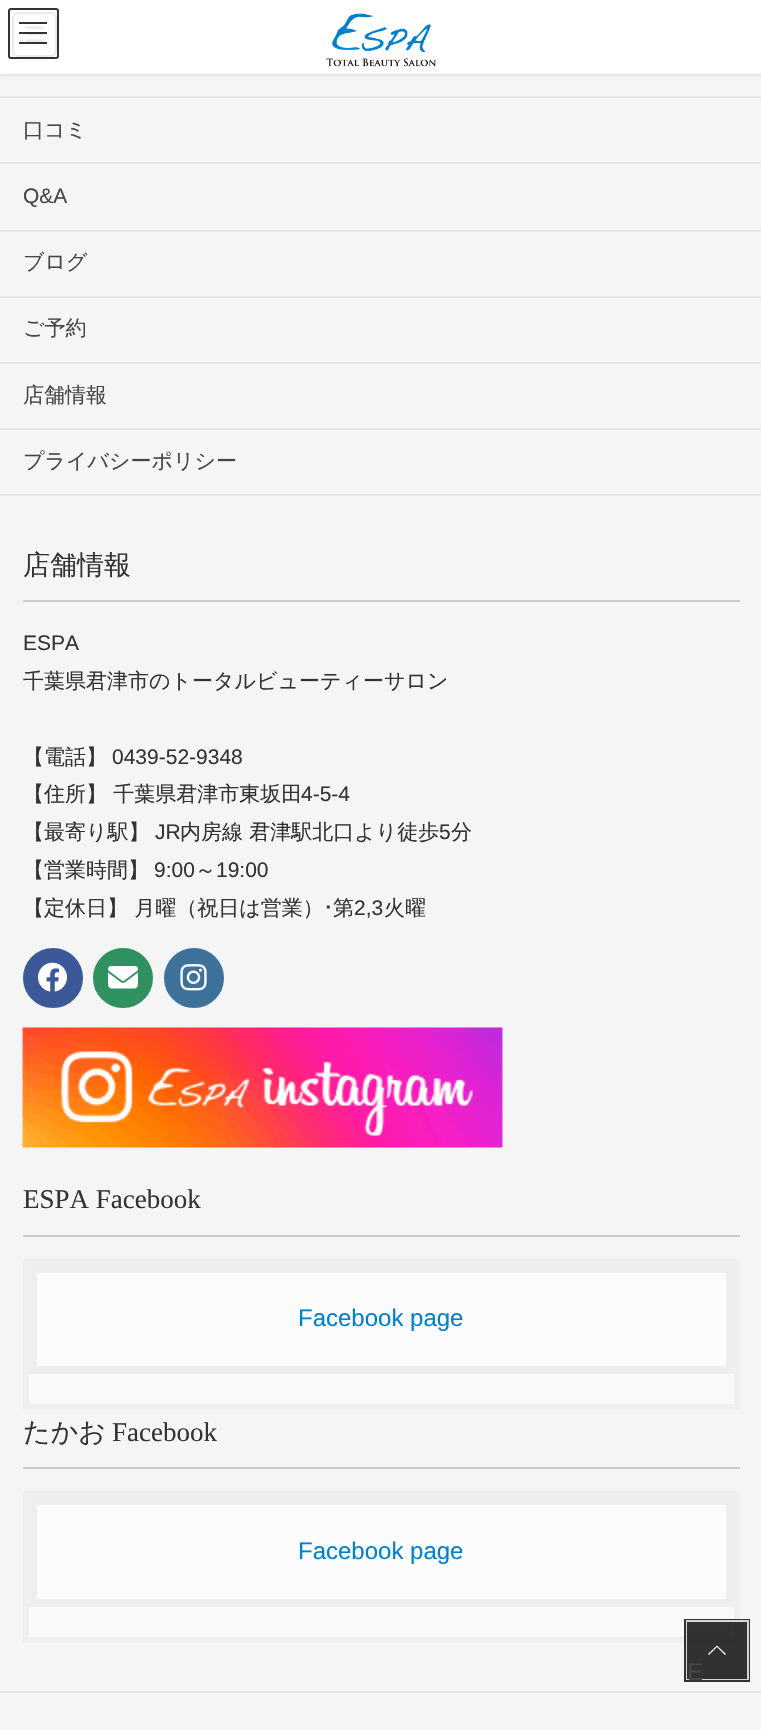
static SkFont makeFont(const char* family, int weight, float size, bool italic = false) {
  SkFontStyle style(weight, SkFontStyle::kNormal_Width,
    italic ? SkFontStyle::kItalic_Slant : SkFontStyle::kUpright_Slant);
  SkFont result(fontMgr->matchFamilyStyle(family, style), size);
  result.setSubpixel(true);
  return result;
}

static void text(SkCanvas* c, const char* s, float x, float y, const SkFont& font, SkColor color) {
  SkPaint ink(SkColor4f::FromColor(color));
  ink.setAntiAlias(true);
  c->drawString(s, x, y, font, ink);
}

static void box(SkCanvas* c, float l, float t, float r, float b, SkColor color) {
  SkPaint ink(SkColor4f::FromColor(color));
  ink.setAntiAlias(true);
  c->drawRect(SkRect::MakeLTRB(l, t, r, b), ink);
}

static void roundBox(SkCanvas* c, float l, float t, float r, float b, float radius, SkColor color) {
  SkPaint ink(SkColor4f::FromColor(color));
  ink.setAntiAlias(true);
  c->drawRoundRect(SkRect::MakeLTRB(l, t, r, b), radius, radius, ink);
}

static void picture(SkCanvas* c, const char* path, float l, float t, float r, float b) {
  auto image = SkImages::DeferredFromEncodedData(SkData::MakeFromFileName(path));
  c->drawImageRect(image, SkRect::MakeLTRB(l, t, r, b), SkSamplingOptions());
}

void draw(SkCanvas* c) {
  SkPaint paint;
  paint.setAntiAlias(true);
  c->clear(0xfff5f5f5);
  paint.setColor(0x1a000000);
  paint.setMaskFilter(SkMaskFilter::MakeBlur(kNormal_SkBlurStyle, 2));
  c->drawRect(SkRect::MakeLTRB(0, 2, 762, 75), paint);
  paint.setMaskFilter(nullptr);
  box(c, 0, 0, 761, 74, 0xffffffff);
  paint.setStyle(SkPaint::kStroke_Style);
  paint.setStrokeWidth(2);
  paint.setColor(0xff999999);
  c->drawRoundRect(SkRect::MakeLTRB(13, 13, 56, 56), 5, 5, paint);
  picture(c, "img_01.png", 25, 26, 44, 42);
  picture(c, "img_02.png", 326, 13, 436, 67);
  roundBox(c, 8, 8, 59, 59, 3, 0xccffffff);
  box(c, 19, 22, 47, 24, 0xff333333);
  box(c, 19, 32, 47, 34, 0xcc000000);
  box(c, 19, 42, 47, 44, 0xff333333);
  paint.setColor(0xff333333);
  c->drawRoundRect(SkRect::MakeLTRB(9, 9, 58, 58), 2, 2, paint);
  box(c, 0, 494, 761, 496, 0xffe5e5e5);
  box(c, 0, 96, 761, 98, 0xffe5e5e5);
  box(c, 0, 162, 761, 164, 0xffe5e5e5);
  SkFont face1 = makeFont("WenQuanYi Zen Hei", 500, 21);
  text(c, "口コミ", 23, 137, face1, 0xff464646);
  box(c, 0, 230, 761, 232, 0xffe5e5e5);
  SkFont face2 = makeFont("Liberation Sans", 400, 21);
  text(c, "Q&A", 23, 203, face2, 0xff464646);
  box(c, 0, 296, 761, 298, 0xffe5e5e5);
  text(c, "ブログ", 23, 269, face1, 0xff464646);
  box(c, 0, 362, 761, 364, 0xffe5e5e5);
  text(c, "ご予約", 23, 335, face1, 0xff464646);
  box(c, 0, 428, 761, 430, 0xffe5e5e5);
  text(c, "店舗情報", 23, 402, face1, 0xff464646);
  text(c, "プライバシーポリシー", 23, 468, face1, 0xff464646);
  box(c, 23, 600, 740, 602, 0xffcccccc);
  SkFont face3 = makeFont("WenQuanYi Zen Hei", 500, 27);
  text(c, "店舗情報", 23, 574, face3, 0xff333333);
  text(c, "ESPA", 23, 650, face2, 0xff333333);
  text(c, "千葉県君津市のトータルビューティーサロン", 23, 688, face1, 0xff333333);
  text(c, "【電話】", 23, 764, face1, 0xff333333);
  text(c, "0439-52-9348", 112, 764, face2, 0xff333333);
  text(c, "【住所】 千葉県君津市東坂田", 23, 801, face1, 0xff333333);
  text(c, "4-5-4", 301, 801, face2, 0xff333333);
  text(c, "【最寄り駅】", 23, 839, face1, 0xff333333);
  text(c, "JR", 155, 839, face2, 0xff333333);
  text(c, "内房線 君津駅北口より徒歩", 180, 839, face1, 0xff333333);
  text(c, "5", 439, 839, face2, 0xff333333);
  text(c, "分", 451, 839, face1, 0xff333333);
  text(c, "【営業時間】", 23, 877, face1, 0xff333333);
  text(c, "9:00", 154, 877, face2, 0xff333333);
  text(c, "～", 195, 877, face1, 0xff333333);
  text(c, "19:00", 216, 877, face2, 0xff333333);
  text(c, "【定休日】 月曜（祝日は営業）", 23, 915, face1, 0xff333333);
  SkFont face4 = makeFont("IPAPGothic", 400, 21);
  text(c, "･", 323, 915, face4, 0xff333333);
  text(c, "第", 333, 915, face1, 0xff333333);
  text(c, "2,3", 354, 915, face2, 0xff333333);
  text(c, "火曜", 384, 915, face1, 0xff333333);
  paint.setStyle(SkPaint::kFill_Style);
  paint.setColor(0xff3b5998);
  c->drawCircle(53, 978, 29, paint);
  paint.setStyle(SkPaint::kStroke_Style);
  c->drawCircle(53, 978, 29, paint);
  picture(c, "img_03.png", 38, 962, 67, 992);
  paint.setStyle(SkPaint::kFill_Style);
  paint.setColor(0xff2f915f);
  c->drawCircle(123, 978, 29, paint);
  paint.setStyle(SkPaint::kStroke_Style);
  c->drawCircle(123, 978, 29, paint);
  picture(c, "img_04.png", 108, 966, 138, 989);
  paint.setStyle(SkPaint::kFill_Style);
  paint.setColor(0xff3f729b);
  c->drawCircle(194, 978, 29, paint);
  paint.setStyle(SkPaint::kStroke_Style);
  c->drawCircle(194, 978, 29, paint);
  picture(c, "img_05.png", 180, 964, 207, 991);
  picture(c, "img_06.png", 22, 1027, 503, 1148);
  box(c, 23, 1235, 740, 1237, 0xffcccccc);
  SkFont face5 = makeFont("Liberation Serif", 400, 27);
  text(c, "ESPA Facebook", 23, 1208, face5, 0xff333333);
  box(c, 29, 1374, 734, 1404, 0xfff9f9f9);
  paint.setStrokeWidth(6);
  paint.setColor(0xffefefef);
  c->drawRect(SkRect::MakeLTRB(26, 1262, 737, 1407), paint);
  paint.setStyle(SkPaint::kFill_Style);
  paint.setColor(0xfffcfcfc);
  c->drawRect(SkRect::MakeLTRB(33, 1269, 730, 1370), paint);
  paint.setStyle(SkPaint::kStroke_Style);
  paint.setStrokeWidth(8);
  paint.setColor(0xffeeeeee);
  c->drawRect(SkRect::MakeLTRB(33, 1269, 730, 1370), paint);
  SkFont face6 = makeFont("Liberation Sans", 400, 24);
  text(c, "Facebook page", 298, 1326, face6, 0xff0081cc);
  box(c, 23, 1467, 740, 1469, 0xffcccccc);
  text(c, "たかお", 23, 1441, face3, 0xff333333);
  text(c, "Facebook", 112, 1441, face5, 0xff333333);
  box(c, 29, 1607, 734, 1637, 0xfff9f9f9);
  paint.setStrokeWidth(6);
  paint.setColor(0xffefefef);
  c->drawRect(SkRect::MakeLTRB(26, 1494, 737, 1640), paint);
  paint.setStyle(SkPaint::kFill_Style);
  paint.setColor(0xfffcfcfc);
  c->drawRect(SkRect::MakeLTRB(33, 1501, 730, 1603), paint);
  paint.setStyle(SkPaint::kStroke_Style);
  paint.setStrokeWidth(8);
  paint.setColor(0xffeeeeee);
  c->drawRect(SkRect::MakeLTRB(33, 1501, 730, 1603), paint);
  text(c, "Facebook page", 298, 1559, face6, 0xff0081cc);
  box(c, 0, 1691, 761, 1693, 0xffe5e5e5);
  paint.setStrokeWidth(3);
  paint.setColor(0xcc000000);
  c->drawRect(SkRect::MakeLTRB(685.5f, 1620.5f, 748.5f, 1680.5f), paint);
  paint.setStrokeWidth(2);
  paint.setColor(0xccffffff);
  c->drawRect(SkRect::MakeLTRB(687, 1621, 748, 1679), paint);
  box(c, 687, 1622, 747, 1679, 0xcc000000);
  paint.setStyle(SkPaint::kFill_Style);
  paint.setColor(0xffffffff);
  c->drawPath(SkPathBuilder().moveTo(726, 1654).lineTo(725, 1655).lineTo(717, 1647).lineTo(709, 1655).lineTo(708, 1654).lineTo(717, 1645.5f).close().detach(), paint);
  text(c, "E", 687, 1680, face6, 0xff464646);
}
